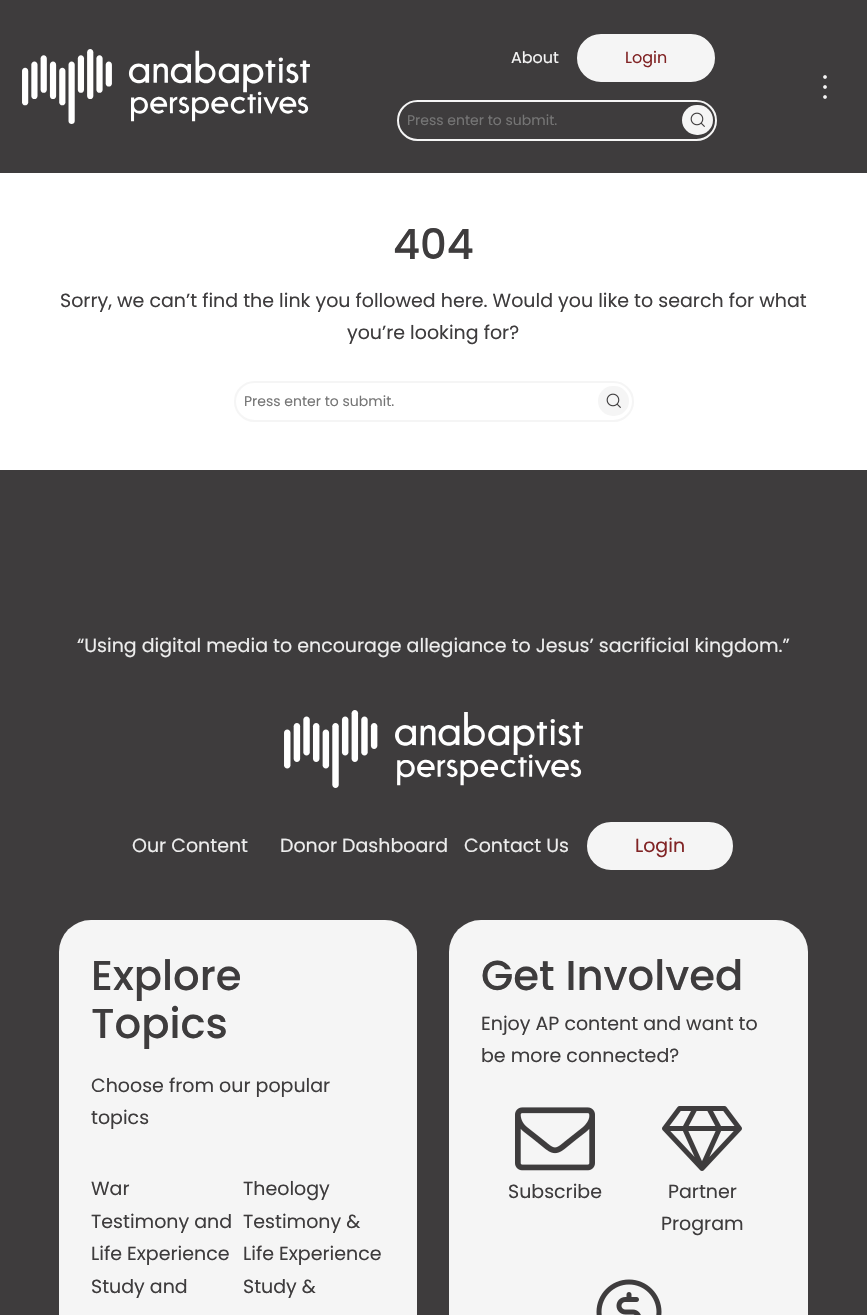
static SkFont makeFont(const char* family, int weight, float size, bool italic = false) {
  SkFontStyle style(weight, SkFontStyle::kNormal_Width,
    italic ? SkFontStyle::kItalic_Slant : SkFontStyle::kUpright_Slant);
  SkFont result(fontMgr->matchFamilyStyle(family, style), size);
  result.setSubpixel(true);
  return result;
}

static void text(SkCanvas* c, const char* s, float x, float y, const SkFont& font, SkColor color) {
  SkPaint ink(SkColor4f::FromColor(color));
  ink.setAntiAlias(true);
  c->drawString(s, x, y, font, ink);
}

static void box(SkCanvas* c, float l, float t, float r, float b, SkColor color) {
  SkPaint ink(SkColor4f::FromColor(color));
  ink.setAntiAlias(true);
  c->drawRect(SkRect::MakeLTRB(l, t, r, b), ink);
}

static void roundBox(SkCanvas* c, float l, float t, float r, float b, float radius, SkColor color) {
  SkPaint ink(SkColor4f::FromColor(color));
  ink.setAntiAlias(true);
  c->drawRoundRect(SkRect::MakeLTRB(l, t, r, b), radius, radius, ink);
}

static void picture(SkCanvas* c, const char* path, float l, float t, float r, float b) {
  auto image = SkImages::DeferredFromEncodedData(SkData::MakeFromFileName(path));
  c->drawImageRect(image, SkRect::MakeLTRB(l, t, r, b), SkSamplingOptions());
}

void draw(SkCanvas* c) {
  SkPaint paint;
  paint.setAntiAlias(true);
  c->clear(0xffffffff);
  box(c, 0, 0, 867, 173, 0xff3e3c3d);
  picture(c, "img_01.png", 22, 49, 310, 124);
  SkFont face1 = makeFont("Poppins", 400, 16);
  text(c, "About", 511, 63, face1, 0xfff5f5f5);
  paint.setColor(0xfff5f5f5);
  c->drawRoundRect(SkRect::MakeLTRB(576, 33, 716, 83), 25, 25, paint);
  paint.setStyle(SkPaint::kStroke_Style);
  paint.setStrokeWidth(2);
  paint.setColor(0xff3e3c3d);
  c->drawRoundRect(SkRect::MakeLTRB(576, 33, 716, 83), 25, 25, paint);
  text(c, "Login", 625, 63, face1, 0xff812425);
  paint.setColor(0xfff5f5f5);
  c->drawRoundRect(SkRect::MakeLTRB(398, 101, 716, 140), 19.5f, 19.5f, paint);
  SkFont face2 = makeFont("Poppins", 400, 14);
  text(c, "Press enter to submit.", 407, 125, face2, 0xff757575);
  roundBox(c, 682, 105, 713, 135, 15, 0xfff5f5f5);
  picture(c, "img_02.png", 690, 112, 705, 127);
  picture(c, "img_03.png", 823, 75, 827, 99);
  SkFont face3 = makeFont("Poppins", 500, 41.75f);
  text(c, "404", 393, 259, face3, 0xff3e3c3d);
  SkFont face4 = makeFont("Poppins", 400, 19);
  text(c, "Sorry, we can’t find the link you followed here. Would you like to search for what", 60, 307, face4, 0xff3e3c3d);
  text(c, "you’re looking for?", 347, 339, face4, 0xff3e3c3d);
  c->drawRoundRect(SkRect::MakeLTRB(235, 382, 633, 421), 19.5f, 19.5f, paint);
  text(c, "Press enter to submit.", 244, 406, face2, 0xff757575);
  roundBox(c, 598, 386, 629, 416, 15, 0xfff5f5f5);
  picture(c, "img_02.png", 606, 393, 621, 408);
  box(c, 0, 470, 867, 1315, 0xff3e3c3d);
  text(c, "“Using digital media to encourage allegiance to Jesus’ sacrificial kingdom.”", 77, 652, face4, 0xffededed);
  picture(c, "img_04.png", 284, 710, 583, 788);
  text(c, "Our Content", 132, 852, face4, 0xffededed);
  text(c, "Donor Dashboard", 280, 852, face4, 0xffededed);
  text(c, "Contact Us", 464, 852, face4, 0xffededed);
  paint.setStyle(SkPaint::kFill_Style);
  c->drawRoundRect(SkRect::MakeLTRB(586, 821, 734, 871), 25, 25, paint);
  paint.setStyle(SkPaint::kStroke_Style);
  paint.setColor(0xff3e3c3d);
  c->drawRoundRect(SkRect::MakeLTRB(586, 821, 734, 871), 25, 25, paint);
  text(c, "Login", 635, 852, face4, 0xff812425);
  roundBox(c, 59, 920, 417, 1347, 32, 0xfff5f5f5);
  text(c, "Explore", 91, 990, face3, 0xff3e3c3d);
  text(c, "Topics", 91, 1038, face3, 0xff3e3c3d);
  text(c, "Choose from our popular", 91, 1092, face4, 0xff3e3c3d);
  text(c, "topics", 91, 1124, face4, 0xff3e3c3d);
  text(c, "War", 91, 1195, face4, 0xff3e3c3d);
  text(c, "Theology", 243, 1195, face4, 0xff3e3c3d);
  text(c, "Testimony and", 91, 1228, face4, 0xff3e3c3d);
  text(c, "Life Experience", 91, 1260, face4, 0xff3e3c3d);
  text(c, "Testimony &", 243, 1228, face4, 0xff3e3c3d);
  text(c, "Life Experience", 243, 1260, face4, 0xff3e3c3d);
  text(c, "Study and", 91, 1293, face4, 0xff3e3c3d);
  text(c, "Study &", 243, 1293, face4, 0xff3e3c3d);
  roundBox(c, 449, 920, 808, 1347, 32, 0xfff5f5f5);
  text(c, "Get Involved", 481, 990, face3, 0xff3e3c3d);
  text(c, "Enjoy AP content and want to", 481, 1030, face4, 0xff3e3c3d);
  text(c, "be more connected?", 481, 1062, face4, 0xff3e3c3d);
  picture(c, "img_05.png", 515, 1107, 595, 1171);
  text(c, "Subscribe", 508, 1198, face4, 0xff3e3c3d);
  picture(c, "img_06.png", 662, 1106, 742, 1171);
  text(c, "Partner", 668, 1198, face4, 0xff3e3c3d);
  text(c, "Program", 661, 1230, face4, 0xff3e3c3d);
  picture(c, "img_07.png", 596, 1279, 662, 1315);
}
